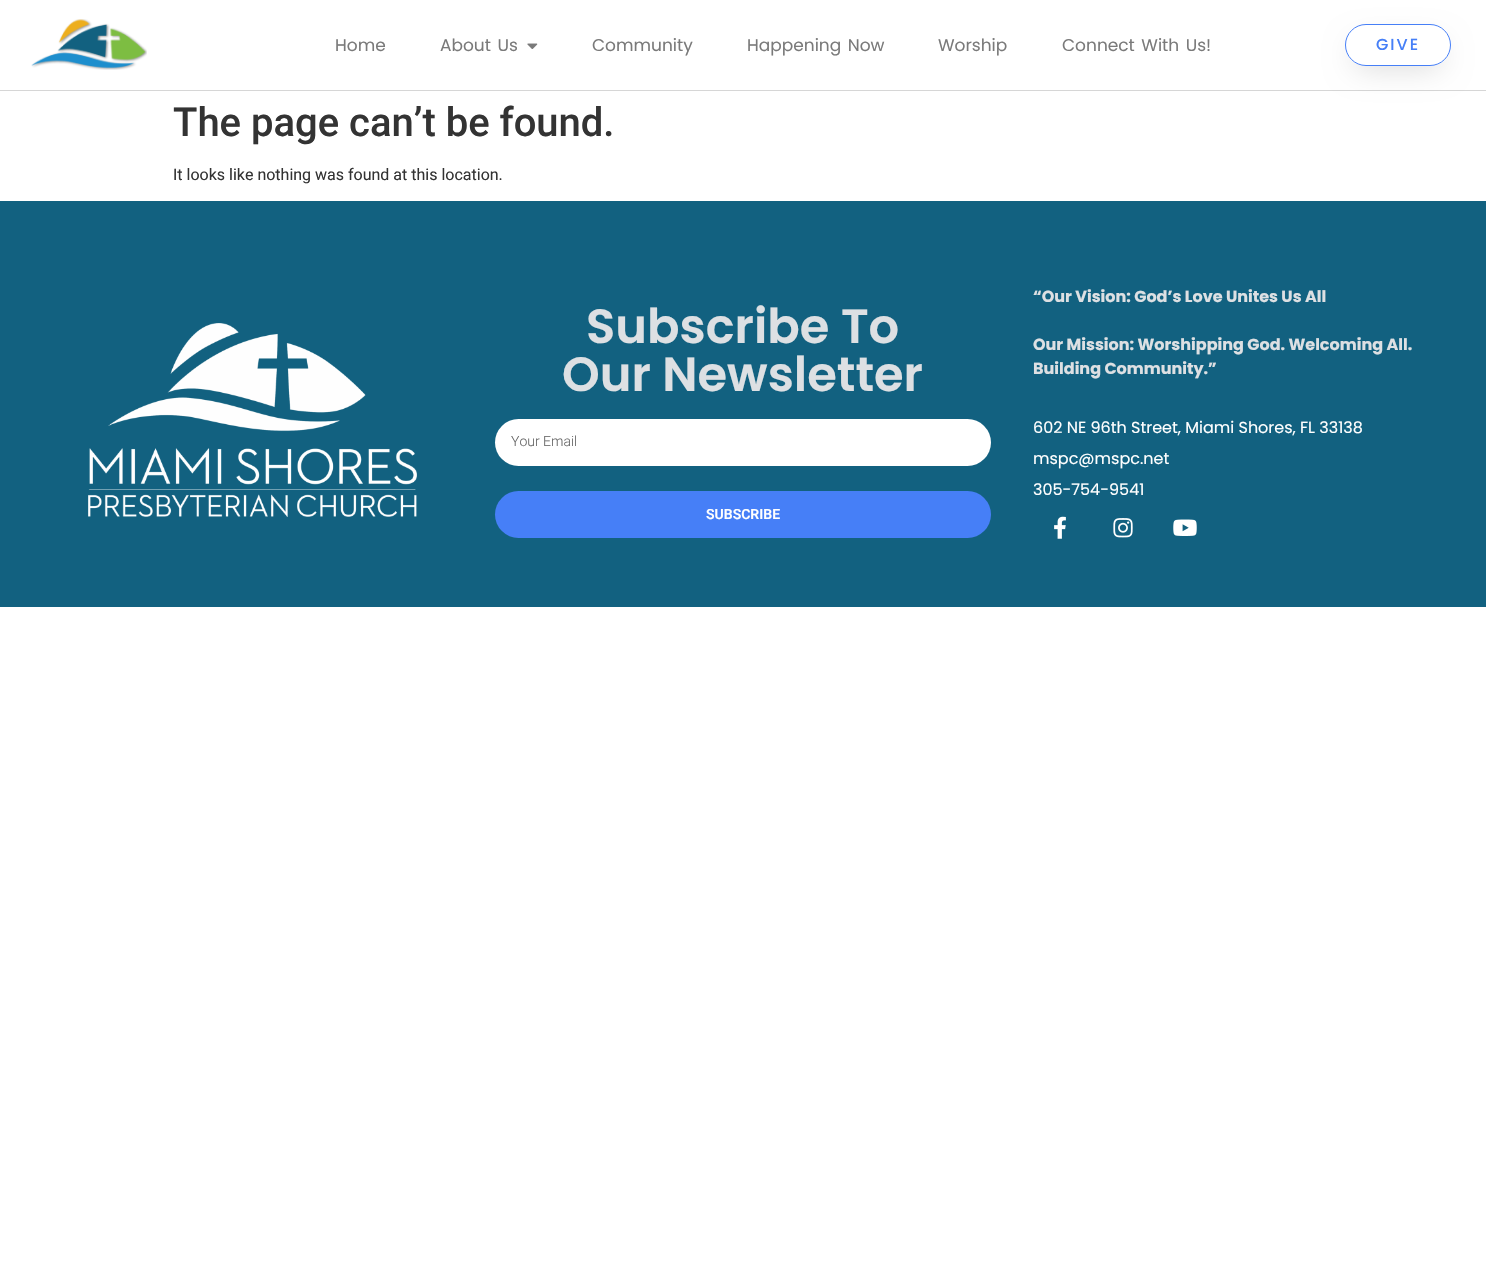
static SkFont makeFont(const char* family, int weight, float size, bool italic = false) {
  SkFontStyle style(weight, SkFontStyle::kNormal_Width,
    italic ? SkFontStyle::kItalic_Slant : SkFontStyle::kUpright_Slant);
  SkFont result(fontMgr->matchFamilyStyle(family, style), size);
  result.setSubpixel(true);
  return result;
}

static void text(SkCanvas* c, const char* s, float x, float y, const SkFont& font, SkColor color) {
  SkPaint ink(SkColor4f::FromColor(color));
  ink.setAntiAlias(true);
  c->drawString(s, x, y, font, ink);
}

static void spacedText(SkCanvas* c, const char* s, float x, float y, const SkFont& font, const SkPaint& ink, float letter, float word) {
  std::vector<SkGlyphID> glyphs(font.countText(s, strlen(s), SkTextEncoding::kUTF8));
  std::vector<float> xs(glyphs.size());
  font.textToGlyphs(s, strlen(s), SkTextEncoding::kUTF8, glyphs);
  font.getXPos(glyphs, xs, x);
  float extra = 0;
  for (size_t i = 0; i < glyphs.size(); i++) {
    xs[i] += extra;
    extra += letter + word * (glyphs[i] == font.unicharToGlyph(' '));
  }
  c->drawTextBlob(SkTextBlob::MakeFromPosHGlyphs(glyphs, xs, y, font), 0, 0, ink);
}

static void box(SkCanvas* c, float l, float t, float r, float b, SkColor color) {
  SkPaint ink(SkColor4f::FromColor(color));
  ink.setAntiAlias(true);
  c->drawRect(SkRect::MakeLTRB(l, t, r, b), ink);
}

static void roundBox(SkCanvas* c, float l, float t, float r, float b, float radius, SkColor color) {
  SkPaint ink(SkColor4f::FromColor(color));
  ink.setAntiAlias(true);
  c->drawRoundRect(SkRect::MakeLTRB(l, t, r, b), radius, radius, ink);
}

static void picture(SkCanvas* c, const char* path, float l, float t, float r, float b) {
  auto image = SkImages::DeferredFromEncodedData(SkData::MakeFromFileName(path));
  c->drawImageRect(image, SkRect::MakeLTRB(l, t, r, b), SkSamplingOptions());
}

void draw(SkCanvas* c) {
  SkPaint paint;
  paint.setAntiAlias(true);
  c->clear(0xffffffff);
  box(c, 0, 90, 1486, 91, 0xffd6d6d6);
  picture(c, "img_01.png", 31, 19, 147, 70);
  SkFont face1 = makeFont("Poppins", 400, 17);
  text(c, "Home", 335, 51, face1, 0xff7a7a7a);
  paint.setColor(0xff7a7a7a);
  spacedText(c, "About Us", 440, 51, face1, paint, 0, 2);
  picture(c, "img_02.png", 527, 43, 538, 49);
  text(c, "Community", 592, 51, face1, 0xff7a7a7a);
  spacedText(c, "Happening Now", 747, 51, face1, paint, 0, 2);
  text(c, "Worship", 938, 51, face1, 0xff7a7a7a);
  spacedText(c, "Connect With Us!", 1062, 51, face1, paint, 0, 2);
  c->save();
  c->clipPath(SkPathBuilder(SkPathFillType::kEvenOdd).moveTo(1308, 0).lineTo(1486, 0).lineTo(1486, 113).lineTo(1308, 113).close().moveTo(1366, 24).lineTo(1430, 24).cubicTo(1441.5f, 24, 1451, 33.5f, 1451, 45).cubicTo(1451, 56.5f, 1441.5f, 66, 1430, 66).lineTo(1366, 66).cubicTo(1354.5f, 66, 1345, 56.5f, 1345, 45).cubicTo(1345, 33.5f, 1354.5f, 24, 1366, 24).close().detach(), true);
  paint.setColor(0x29000000);
  paint.setMaskFilter(SkMaskFilter::MakeBlur(kNormal_SkBlurStyle, 15));
  c->drawRoundRect(SkRect::MakeLTRB(1354, 43, 1442, 67), 12, 12, paint);
  paint.setMaskFilter(nullptr);
  c->restore();
  paint.setStyle(SkPaint::kStroke_Style);
  paint.setStrokeWidth(1);
  paint.setColor(0xff467ff7);
  c->drawRoundRect(SkRect::MakeLTRB(1345.5f, 24.5f, 1450.5f, 65.5f), 20.5f, 20.5f, paint);
  SkFont face2 = makeFont("Poppins", 500, 16);
  paint.setStyle(SkPaint::kFill_Style);
  spacedText(c, "GIVE", 1376, 50, face2, paint, 2, 0);
  SkFont face3 = makeFont("Roboto", 500, 40);
  text(c, "The page can’t be found.", 173, 136, face3, 0xff333333);
  SkFont face4 = makeFont("Roboto", 400, 16);
  text(c, "It looks like nothing was found at this location.", 173, 180, face4, 0xff333333);
  box(c, 0, 201, 1486, 607, 0xff126180);
  picture(c, "img_03.png", 88, 323, 417, 517);
  SkFont face5 = makeFont("Poppins", 600, 48);
  text(c, "Subscribe To", 586, 343, face5, 0xffdde0e3);
  text(c, "Our Newsletter", 562, 391, face5, 0xffdde0e3);
  roundBox(c, 495, 419, 991, 466, 23.5f, 0xffffffff);
  SkFont face6 = makeFont("Roboto", 300, 14);
  text(c, "Your Email", 511, 446, face6, 0xff666666);
  roundBox(c, 495, 491, 991, 538, 23.5f, 0xff467ff7);
  SkFont face7 = makeFont("Roboto", 600, 14);
  text(c, "SUBSCRIBE", 706, 519, face7, 0xffffffff);
  SkFont face8 = makeFont("Poppins", 700, 16);
  text(c, "“Our Vision: God’s Love Unites Us All", 1033, 302, face8, 0xffdde0e3);
  text(c, "Our Mission: Worshipping God. Welcoming All.", 1033, 350, face8, 0xffdde0e3);
  text(c, "Building Community.”", 1033, 374, face8, 0xffdde0e3);
  SkFont face9 = makeFont("Poppins", 400, 16);
  text(c, "602 NE 96th Street, Miami Shores, FL 33138", 1033, 433, face9, 0xffffffff);
  text(c, "mspc@mspc.net", 1033, 464, face9, 0xffffffff);
  text(c, "305-754-9541", 1033, 495, face9, 0xffffffff);
  picture(c, "img_04.png", 1054, 516, 1066, 539);
  picture(c, "img_05.png", 1113, 518, 1133, 538);
  picture(c, "img_06.png", 1173, 519, 1197, 536);
}
